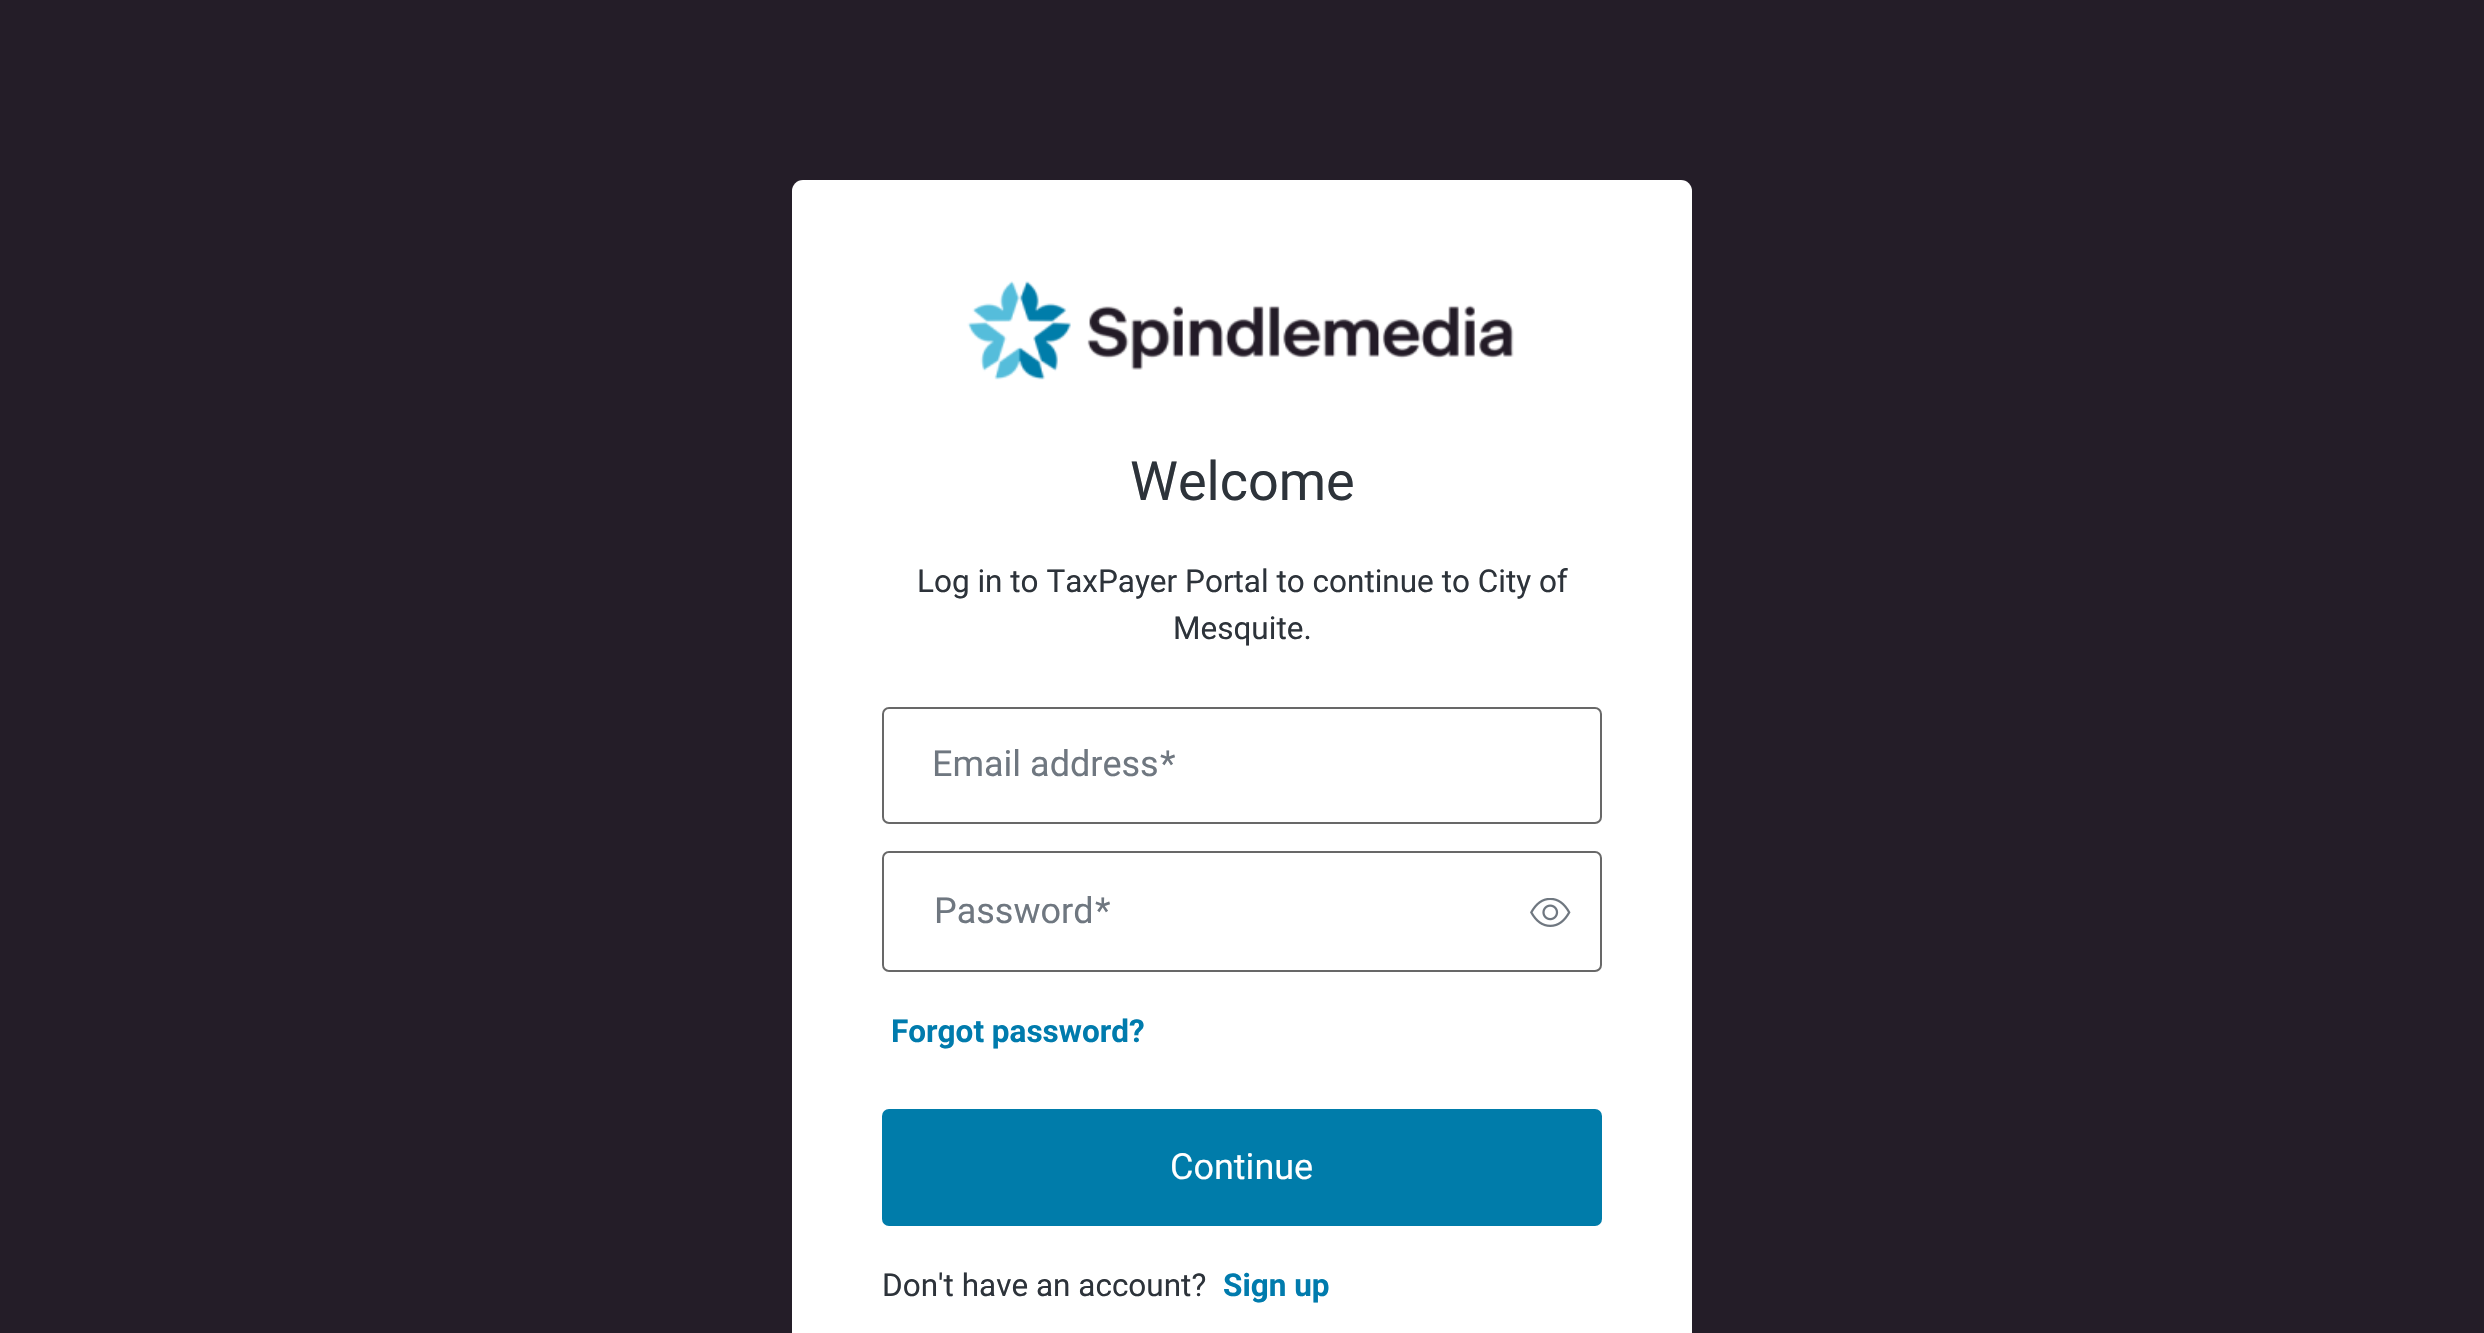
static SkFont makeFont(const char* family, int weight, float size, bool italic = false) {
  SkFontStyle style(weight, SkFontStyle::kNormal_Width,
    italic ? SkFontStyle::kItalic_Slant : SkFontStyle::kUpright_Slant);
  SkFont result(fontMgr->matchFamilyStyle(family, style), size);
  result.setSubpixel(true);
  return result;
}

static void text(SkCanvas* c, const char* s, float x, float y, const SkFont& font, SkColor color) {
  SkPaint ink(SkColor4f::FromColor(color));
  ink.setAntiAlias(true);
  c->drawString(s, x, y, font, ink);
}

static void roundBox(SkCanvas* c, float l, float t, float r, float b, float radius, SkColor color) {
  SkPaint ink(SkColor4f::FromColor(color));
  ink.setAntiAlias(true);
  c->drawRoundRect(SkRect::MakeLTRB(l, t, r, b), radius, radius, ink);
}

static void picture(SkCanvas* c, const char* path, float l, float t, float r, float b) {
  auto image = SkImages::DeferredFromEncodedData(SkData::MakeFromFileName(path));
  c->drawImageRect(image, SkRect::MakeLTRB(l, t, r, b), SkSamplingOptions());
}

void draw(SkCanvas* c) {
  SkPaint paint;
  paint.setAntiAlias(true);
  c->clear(0xff241d28);
  roundBox(c, 792, 180, 1692, 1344, 11, 0xffffffff);
  picture(c, "img_01.png", 967, 281, 1514, 380);
  SkFont face1 = makeFont("Roboto", 400, 54);
  text(c, "Welcome", 1130, 500, face1, 0xff2d333a);
  SkFont face2 = makeFont("Roboto", 400, 31.5f);
  text(c, "Log in to TaxPayer Portal to continue to City of", 917, 592, face2, 0xff2d333a);
  text(c, "Mesquite.", 1173, 639, face2, 0xff2d333a);
  paint.setStyle(SkPaint::kStroke_Style);
  paint.setStrokeWidth(2);
  paint.setColor(0xff686868);
  c->drawRoundRect(SkRect::MakeLTRB(883, 708, 1601, 823), 6, 6, paint);
  SkFont face3 = makeFont("Roboto", 400, 36);
  text(c, "Email address", 932, 776, face3, 0xff6f7780);
  text(c, "*", 1160, 776, face3, 0xff6f7780);
  c->drawRoundRect(SkRect::MakeLTRB(883, 852, 1601, 971), 6, 6, paint);
  roundBox(c, 884, 853, 1501, 970, 7, 0xffffffff);
  text(c, "Password", 934, 923, face3, 0xff6f7780);
  text(c, "*", 1095, 923, face3, 0xff6f7780);
  picture(c, "img_02.png", 1530, 898, 1571, 927);
  SkFont face4 = makeFont("Roboto", 700, 31.5f);
  text(c, "Forgot password?", 891, 1042, face4, 0xff007bad);
  roundBox(c, 882, 1109, 1602, 1226, 7, 0xff007caa);
  text(c, "Continue", 1170, 1179, face3, 0xffffffff);
  text(c, "Don't have an account?", 882, 1296, face2, 0xff2d333a);
  text(c, "Sign up", 1223, 1296, face4, 0xff007bad);
}
